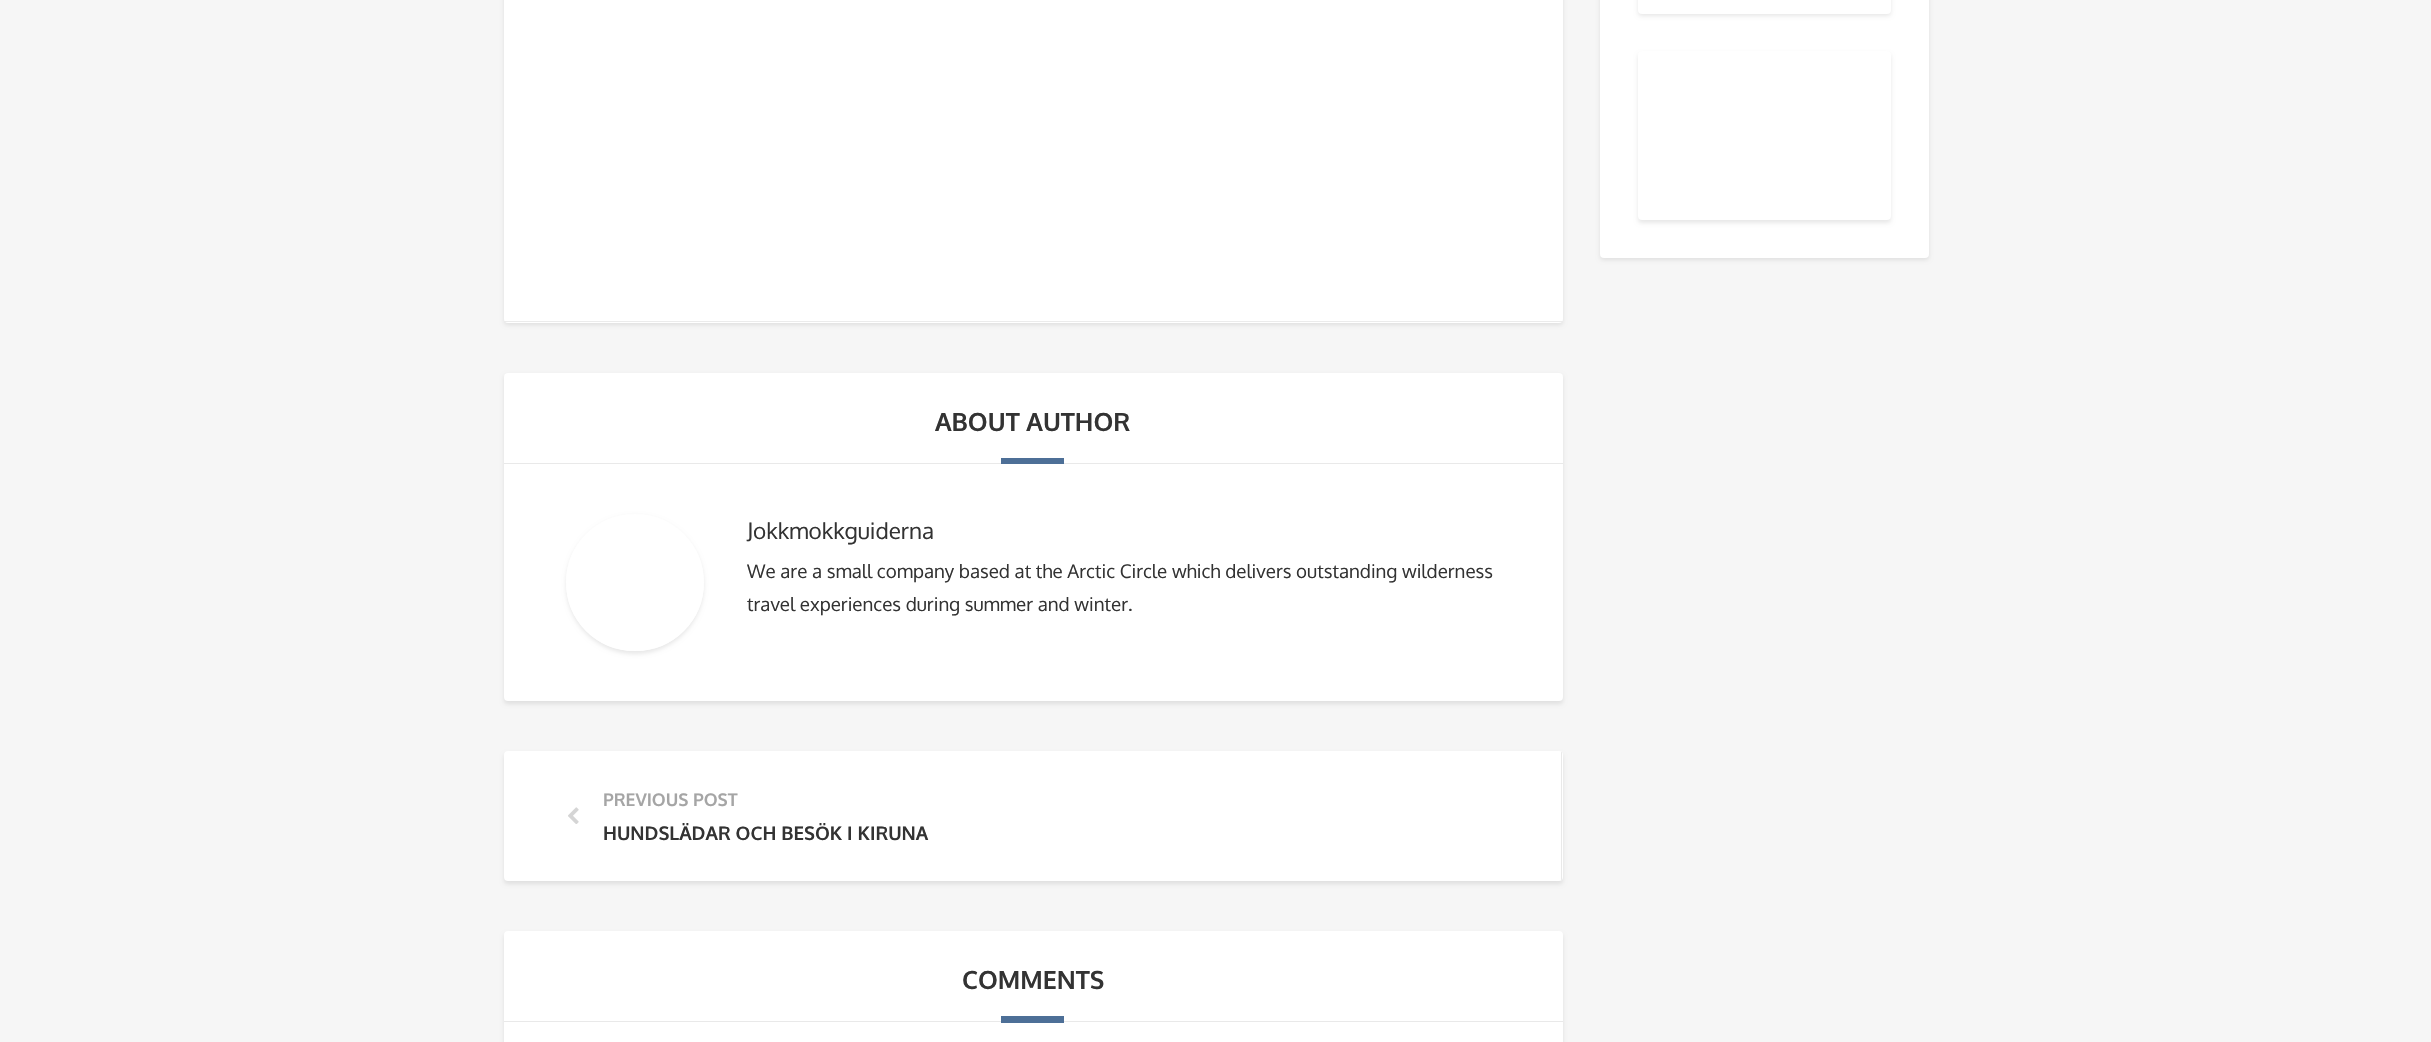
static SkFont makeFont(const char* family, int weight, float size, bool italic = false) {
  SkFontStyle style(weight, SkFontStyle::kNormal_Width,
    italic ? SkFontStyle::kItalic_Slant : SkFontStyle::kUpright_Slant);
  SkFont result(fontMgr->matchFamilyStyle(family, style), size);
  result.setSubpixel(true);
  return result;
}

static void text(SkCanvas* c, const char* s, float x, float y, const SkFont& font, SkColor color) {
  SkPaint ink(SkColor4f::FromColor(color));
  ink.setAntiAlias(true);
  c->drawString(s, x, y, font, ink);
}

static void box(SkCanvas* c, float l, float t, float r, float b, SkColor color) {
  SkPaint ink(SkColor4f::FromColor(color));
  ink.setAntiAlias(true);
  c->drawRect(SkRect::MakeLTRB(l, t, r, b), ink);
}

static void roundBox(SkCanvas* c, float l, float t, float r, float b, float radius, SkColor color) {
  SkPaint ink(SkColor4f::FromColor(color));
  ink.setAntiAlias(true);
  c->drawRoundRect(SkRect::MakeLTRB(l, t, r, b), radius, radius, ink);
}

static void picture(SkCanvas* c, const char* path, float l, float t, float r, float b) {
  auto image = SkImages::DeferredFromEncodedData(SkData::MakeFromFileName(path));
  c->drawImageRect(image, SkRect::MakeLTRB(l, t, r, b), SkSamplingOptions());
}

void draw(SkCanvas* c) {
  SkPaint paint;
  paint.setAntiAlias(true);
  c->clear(0xfff6f6f6);
  paint.setColor(0x17000000);
  paint.setMaskFilter(SkMaskFilter::MakeBlur(kNormal_SkBlurStyle, 2));
  c->drawRoundRect(SkRect::MakeLTRB(1600, -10, 1929, 260), 4, 4, paint);
  paint.setMaskFilter(nullptr);
  roundBox(c, 1600, -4, 1929, 258, 4, 0xffffffff);
  paint.setMaskFilter(SkMaskFilter::MakeBlur(kNormal_SkBlurStyle, 2));
  c->drawRoundRect(SkRect::MakeLTRB(1638, -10, 1891, 16), 4, 4, paint);
  paint.setMaskFilter(nullptr);
  roundBox(c, 1638, -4, 1891, 14, 4, 0xffffffff);
  paint.setMaskFilter(SkMaskFilter::MakeBlur(kNormal_SkBlurStyle, 2));
  c->drawRoundRect(SkRect::MakeLTRB(1638, 54, 1891, 223), 4, 4, paint);
  paint.setMaskFilter(nullptr);
  roundBox(c, 1638, 51, 1891, 220, 4, 0xffffffff);
  paint.setMaskFilter(SkMaskFilter::MakeBlur(kNormal_SkBlurStyle, 2));
  c->drawRoundRect(SkRect::MakeLTRB(504, -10, 1563, 325), 4, 4, paint);
  paint.setMaskFilter(nullptr);
  roundBox(c, 504, -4, 1563, 323, 4, 0xffffffff);
  box(c, 504, 321, 1563, 322, 0xffebebeb);
  paint.setMaskFilter(SkMaskFilter::MakeBlur(kNormal_SkBlurStyle, 2));
  c->drawRoundRect(SkRect::MakeLTRB(504, 375, 1563, 704), 4, 4, paint);
  paint.setMaskFilter(nullptr);
  roundBox(c, 504, 373, 1563, 701, 4, 0xffffffff);
  box(c, 504, 463, 1563, 464, 0xffe9e9e9);
  SkFont face1 = makeFont("Oxygen", 700, 25);
  text(c, "ABOUT AUTHOR", 935, 431, face1, 0xff333333);
  box(c, 1001, 458, 1064, 464, 0xff4d6f97);
  c->save();
  c->clipPath(SkPathBuilder(SkPathFillType::kEvenOdd).moveTo(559, 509).lineTo(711, 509).lineTo(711, 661).lineTo(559, 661).close().moveTo(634.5f, 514).lineTo(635.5f, 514).cubicTo(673.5f, 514, 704, 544.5f, 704, 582.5f).cubicTo(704, 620.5f, 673.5f, 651, 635.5f, 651).lineTo(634.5f, 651).cubicTo(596.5f, 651, 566, 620.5f, 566, 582.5f).cubicTo(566, 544.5f, 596.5f, 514, 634.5f, 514).close().detach(), true);
  paint.setMaskFilter(SkMaskFilter::MakeBlur(kNormal_SkBlurStyle, 2));
  c->drawRoundRect(SkRect::MakeLTRB(566, 516, 704, 654), 69, 69, paint);
  paint.setMaskFilter(nullptr);
  c->restore();
  paint.setStyle(SkPaint::kStroke_Style);
  paint.setStrokeWidth(6);
  paint.setColor(0xffffffff);
  c->drawRoundRect(SkRect::MakeLTRB(569, 517, 701, 648), 65.5f, 65.5f, paint);
  SkFont face2 = makeFont("Oxygen", 400, 22.5f);
  text(c, "Jokkmokkguiderna", 747, 539, face2, 0xff333333);
  SkFont face3 = makeFont("Oxygen", 400, 18.75f);
  text(c, "We are a small company based at the Arctic Circle which delivers outstanding wilderness", 747, 578, face3, 0xff333333);
  text(c, "travel experiences during summer and winter.", 747, 611, face3, 0xff333333);
  paint.setStyle(SkPaint::kFill_Style);
  paint.setColor(0x17000000);
  paint.setMaskFilter(SkMaskFilter::MakeBlur(kNormal_SkBlurStyle, 2));
  c->drawRoundRect(SkRect::MakeLTRB(504, 754, 1563, 884), 4, 4, paint);
  paint.setMaskFilter(nullptr);
  roundBox(c, 504, 751, 1563, 881, 4, 0xffffffff);
  c->save();
  c->clipPath(SkPathBuilder().moveTo(508, 751).lineTo(1559, 751).cubicTo(1561, 751, 1563, 753, 1563, 755).lineTo(1563, 877).cubicTo(1563, 879, 1561, 881, 1559, 881).lineTo(508, 881).cubicTo(506, 881, 504, 879, 504, 877).lineTo(504, 755).cubicTo(504, 753, 506, 751, 508, 751).close().detach(), true);
  box(c, 1561, 751, 1562, 881, 0xffe9e9e9);
  c->restore();
  SkFont face4 = makeFont("Oxygen", 700, 17.5f);
  text(c, "PREVIOUS POST", 603, 806, face4, 0xffa5a5a5);
  picture(c, "img_01.png", 568, 807, 579, 824);
  SkFont face5 = makeFont("Oxygen", 700, 18.75f);
  text(c, "HUNDSLÄDAR OCH BESÖK I KIRUNA", 603, 840, face5, 0xff333333);
  paint.setMaskFilter(SkMaskFilter::MakeBlur(kNormal_SkBlurStyle, 2));
  c->drawRoundRect(SkRect::MakeLTRB(504, 934, 1563, 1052), 4, 4, paint);
  paint.setMaskFilter(nullptr);
  roundBox(c, 504, 931, 1563, 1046, 4, 0xffffffff);
  box(c, 504, 1021, 1563, 1022, 0xffe9e9e9);
  text(c, "COMMENTS", 962, 989, face1, 0xff333333);
  box(c, 1001, 1016, 1064, 1023, 0xff4d6f97);
}
